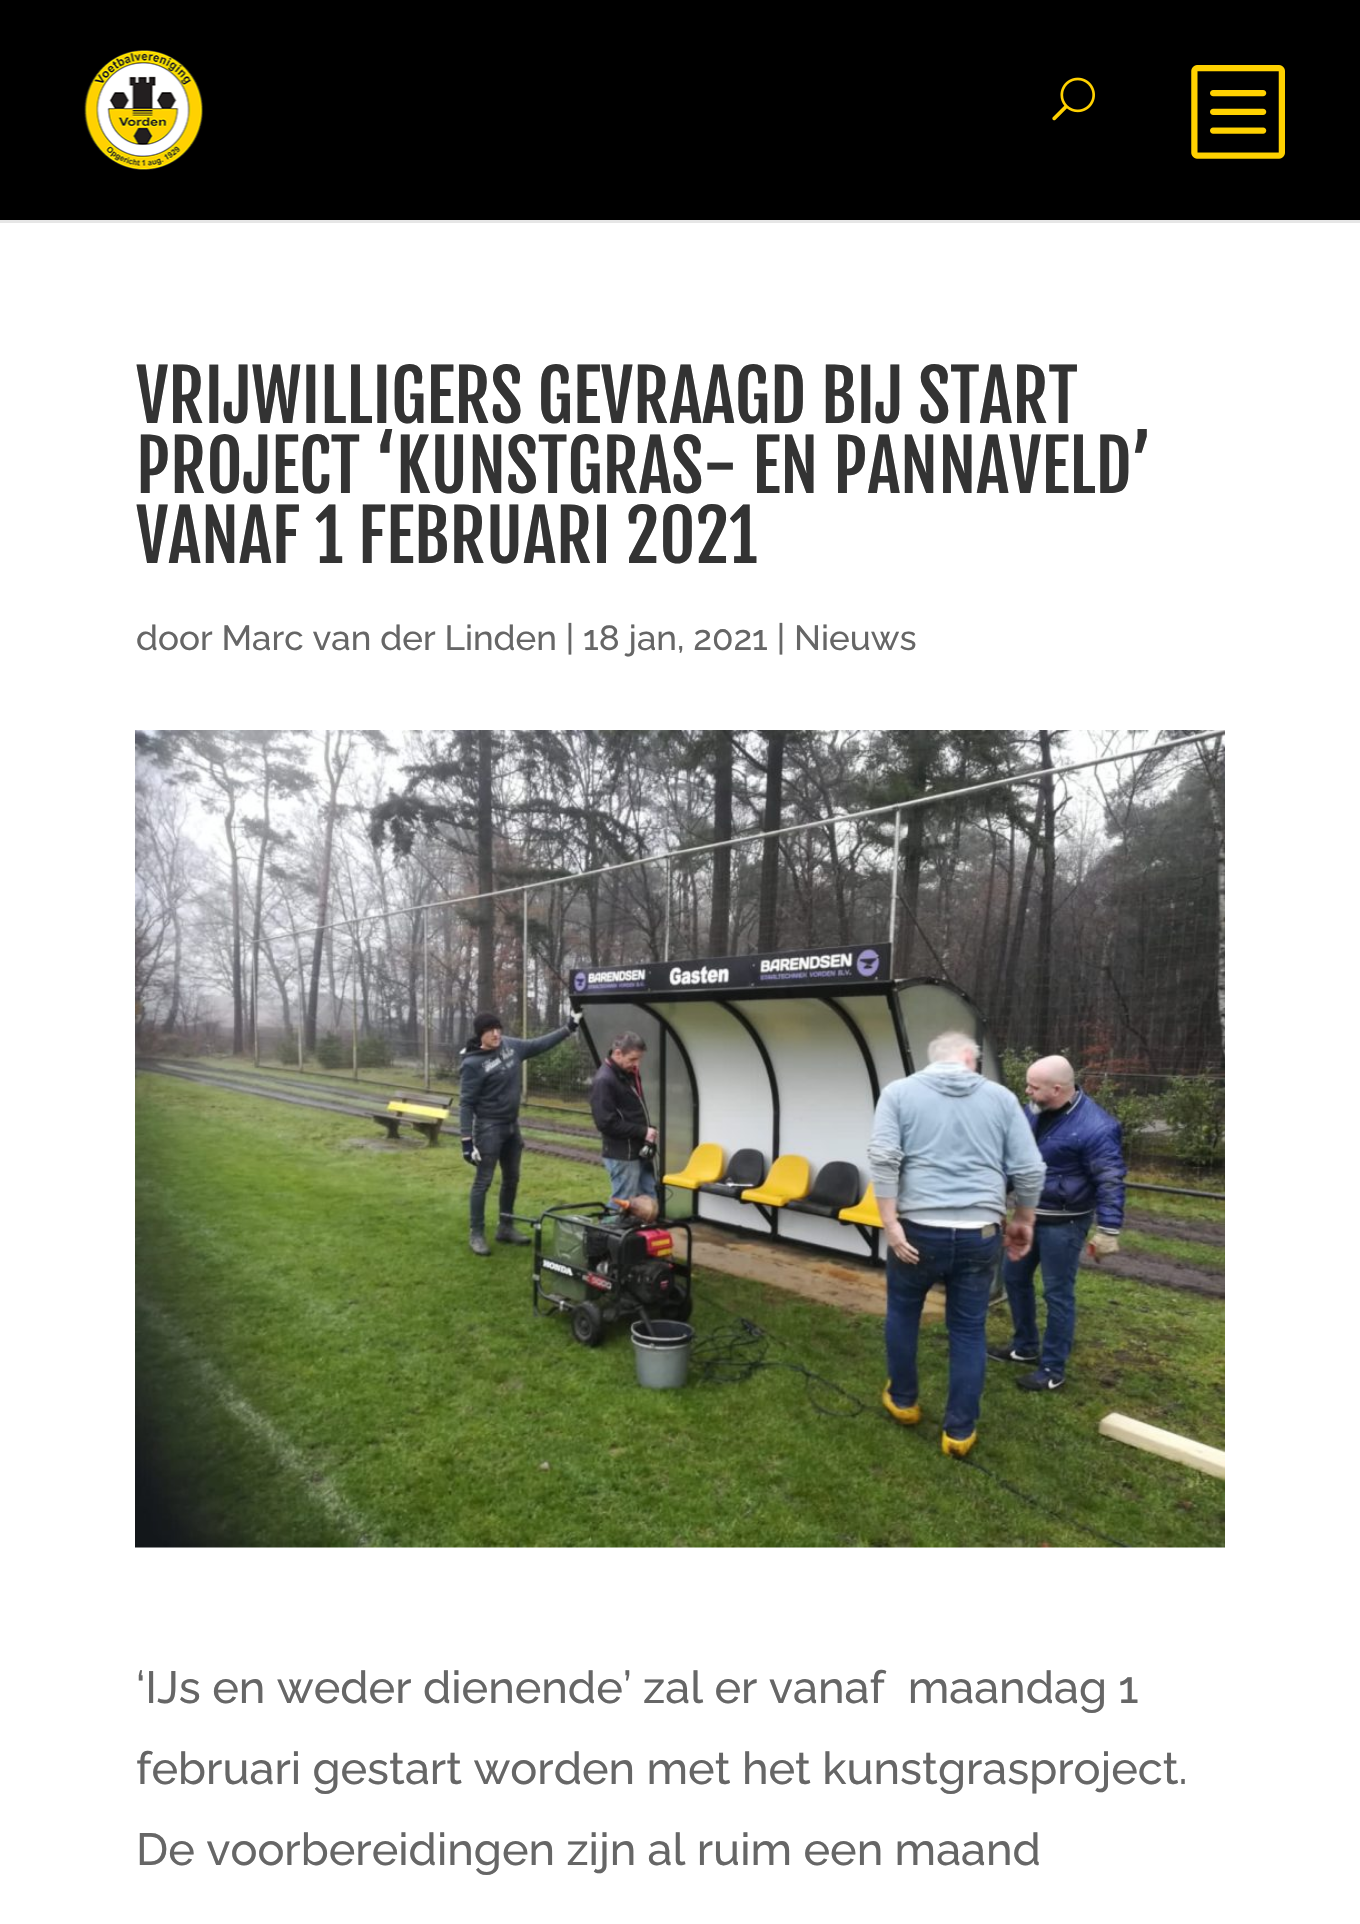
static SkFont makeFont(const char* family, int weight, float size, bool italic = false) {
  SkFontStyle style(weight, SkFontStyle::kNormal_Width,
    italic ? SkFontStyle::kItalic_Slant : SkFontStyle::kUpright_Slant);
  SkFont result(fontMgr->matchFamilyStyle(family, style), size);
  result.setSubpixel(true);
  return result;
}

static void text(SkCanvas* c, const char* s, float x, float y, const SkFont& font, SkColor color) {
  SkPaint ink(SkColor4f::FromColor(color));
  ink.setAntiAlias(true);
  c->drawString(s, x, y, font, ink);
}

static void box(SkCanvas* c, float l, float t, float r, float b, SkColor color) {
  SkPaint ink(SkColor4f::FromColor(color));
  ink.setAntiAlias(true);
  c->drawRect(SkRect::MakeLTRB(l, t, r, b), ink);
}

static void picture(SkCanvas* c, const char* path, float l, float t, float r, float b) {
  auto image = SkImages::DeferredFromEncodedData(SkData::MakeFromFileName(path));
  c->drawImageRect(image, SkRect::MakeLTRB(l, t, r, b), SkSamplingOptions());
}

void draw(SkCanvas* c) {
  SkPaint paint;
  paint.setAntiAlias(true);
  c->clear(0xffffffff);
  box(c, 0, 220, 1360, 223, 0xffe6e6e6);
  box(c, 0, 0, 1360, 220, 0xff000000);
  picture(c, "img_01.png", 84, 50, 203, 170);
  picture(c, "img_02.png", 1052, 77, 1095, 121);
  picture(c, "img_03.png", 1191, 65, 1285, 159);
  SkFont face1 = makeFont("Fjalla One", 400, 70);
  text(c, "VRIJWILLIGERS GEVRAAGD BIJ START", 136, 423, face1, 0xff333333);
  text(c, "PROJECT ‘KUNSTGRAS- EN PANNAVELD’", 136, 493, face1, 0xff333333);
  text(c, "VANAF 1 FEBRUARI 2021", 136, 563, face1, 0xff333333);
  SkFont face2 = makeFont("Raleway", 100, 35);
  text(c, "door Marc van der Linden | 18 jan, 2021 | Nieuws", 136, 650, face2, 0xff666666);
  picture(c, "img_04.png", 135, 730, 1225, 1548);
  SkFont face3 = makeFont("Raleway", 100, 45);
  text(c, "‘IJs en weder dienende’ zal er vanaf  maandag 1", 136, 1703, face3, 0xff666666);
  text(c, "februari gestart worden met het kunstgrasproject.", 136, 1784, face3, 0xff666666);
  text(c, "De voorbereidingen zijn al ruim een maand", 136, 1865, face3, 0xff666666);
}
